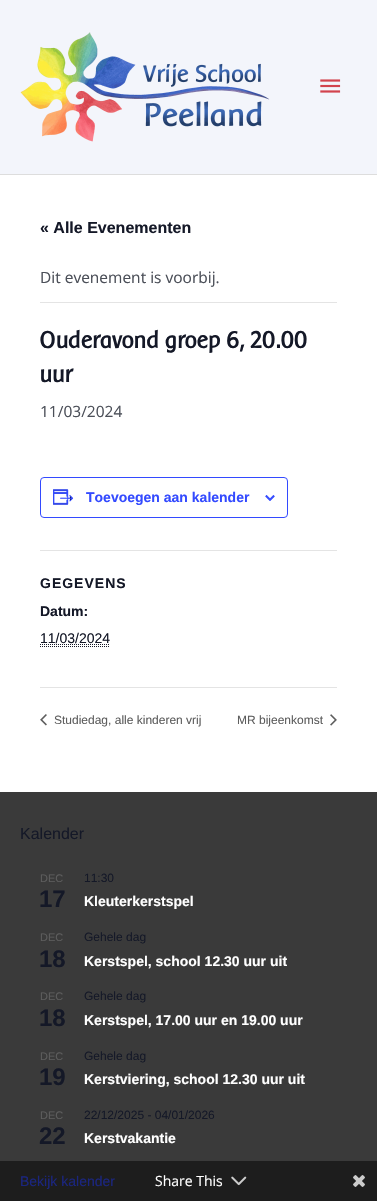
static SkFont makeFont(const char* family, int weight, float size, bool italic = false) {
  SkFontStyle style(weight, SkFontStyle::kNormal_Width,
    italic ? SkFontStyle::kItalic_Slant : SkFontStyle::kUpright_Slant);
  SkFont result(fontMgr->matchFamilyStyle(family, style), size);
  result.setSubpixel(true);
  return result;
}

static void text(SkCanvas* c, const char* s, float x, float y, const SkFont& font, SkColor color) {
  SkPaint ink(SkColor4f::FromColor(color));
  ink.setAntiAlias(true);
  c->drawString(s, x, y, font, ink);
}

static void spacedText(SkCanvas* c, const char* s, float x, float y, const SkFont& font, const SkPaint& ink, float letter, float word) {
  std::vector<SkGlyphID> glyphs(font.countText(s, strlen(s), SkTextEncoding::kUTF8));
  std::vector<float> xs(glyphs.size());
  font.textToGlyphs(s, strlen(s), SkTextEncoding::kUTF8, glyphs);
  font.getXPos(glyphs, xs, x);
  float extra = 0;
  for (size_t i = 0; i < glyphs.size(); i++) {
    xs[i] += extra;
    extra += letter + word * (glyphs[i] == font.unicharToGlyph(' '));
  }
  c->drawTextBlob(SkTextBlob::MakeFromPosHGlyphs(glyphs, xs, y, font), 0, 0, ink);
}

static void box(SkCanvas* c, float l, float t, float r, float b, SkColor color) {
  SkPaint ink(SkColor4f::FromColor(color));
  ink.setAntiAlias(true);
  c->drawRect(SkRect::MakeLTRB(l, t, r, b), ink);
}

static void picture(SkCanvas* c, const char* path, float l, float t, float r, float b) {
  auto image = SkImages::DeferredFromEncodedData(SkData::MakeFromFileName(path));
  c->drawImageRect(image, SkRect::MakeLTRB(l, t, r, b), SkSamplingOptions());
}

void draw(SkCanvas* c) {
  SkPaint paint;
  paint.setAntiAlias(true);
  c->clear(0xffffffff);
  box(c, 0, 0, 377, 174, 0xfff3f5fb);
  box(c, 0, 174, 377, 175, 0xffdddddd);
  picture(c, "img_01.png", 20, 32, 270, 142);
  picture(c, "img_02.png", 320, 79, 341, 93);
  SkFont face1 = makeFont("Liberation Sans", 700, 16);
  text(c, "« Alle Evenementen", 40, 233, face1, 0xff141827);
  box(c, 40, 302, 337, 303, 0xffe4e4e4);
  SkFont face2 = makeFont("Open Sans", 400, 15.5f);
  text(c, "Dit evenement is voorbij.", 40, 283, face2, 0xff4b4f58);
  SkFont face3 = makeFont("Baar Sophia", 700, 24);
  text(c, "Ouderavond groep 6, 20.00", 40, 348, face3, 0xff141827);
  text(c, "uur", 40, 382, face3, 0xff141827);
  text(c, "11/03/2024", 40, 417, face2, 0xff4b4f58);
  paint.setStyle(SkPaint::kStroke_Style);
  paint.setStrokeWidth(1);
  paint.setColor(0xff334aff);
  c->drawRoundRect(SkRect::MakeLTRB(40.5f, 477.5f, 287.5f, 517.5f), 3.5f, 3.5f, paint);
  picture(c, "img_03.png", 53, 489, 74, 505);
  SkFont face4 = makeFont("Liberation Sans", 700, 14);
  text(c, "Toevoegen aan kalender", 86, 502, face4, 0xff334aff);
  picture(c, "img_04.png", 265, 495, 275, 501);
  box(c, 40, 550, 337, 551, 0xffe4e4e4);
  paint.setStyle(SkPaint::kFill_Style);
  paint.setColor(0xff141827);
  spacedText(c, "GEGEVENS", 40, 588, face4, paint, 1, 0);
  text(c, "Datum:", 40, 616, face4, 0xff141827);
  SkFont face5 = makeFont("Liberation Sans", 400, 14);
  text(c, "11/03/2024", 40, 643, face5, 0xff141827);
  paint.setStyle(SkPaint::kStroke_Style);
  paint.setPathEffect(SkDashPathEffect::Make({{1, 1}}, 0));
  c->drawPath(SkPathBuilder().moveTo(40, 646.5f).lineTo(110, 646.5f).detach(), paint);
  paint.setPathEffect(nullptr);
  paint.setPathEffect(SkDashPathEffect::Make({{1, 1}}, 0));
  c->drawPath(SkPathBuilder().moveTo(40, 644.5f).lineTo(110, 644.5f).detach(), paint);
  paint.setPathEffect(nullptr);
  box(c, 40, 687, 337, 688, 0xffe4e4e4);
  picture(c, "img_05.png", 40, 714, 47, 726);
  SkFont face6 = makeFont("Liberation Sans", 400, 12);
  text(c, "Studiedag, alle kinderen vrij", 54, 724, face6, 0xff5d5d5d);
  text(c, "MR bijeenkomst", 237, 724, face6, 0xff5d5d5d);
  picture(c, "img_06.png", 330, 714, 337, 726);
  box(c, 0, 792, 377, 1161, 0xff3a3a3a);
  box(c, 0, 1161, 377, 1201, 0xff1d1d1d);
  SkFont face7 = makeFont("Liberation Sans", 400, 16);
  text(c, "Kalender", 20, 839, face7, 0xff141827);
  SkFont face8 = makeFont("Liberation Sans", 400, 11);
  text(c, "DEC", 40, 882, face8, 0xff5d5d5d);
  SkFont face9 = makeFont("Liberation Sans", 700, 24);
  text(c, "17", 39, 907, face9, 0xff141827);
  text(c, "11:30", 84, 882, face6, 0xff141827);
  text(c, "Kleuterkerstspel", 84, 906, face4, 0xffffffff);
  text(c, "DEC", 40, 941, face8, 0xff5d5d5d);
  text(c, "18", 39, 967, face9, 0xff141827);
  text(c, "Gehele dag", 84, 941, face6, 0xff141827);
  text(c, "Kerstspel, school 12.30 uur uit", 84, 966, face4, 0xffffffff);
  text(c, "DEC", 40, 1000, face8, 0xff5d5d5d);
  text(c, "18", 39, 1026, face9, 0xff141827);
  text(c, "Gehele dag", 84, 1000, face6, 0xff141827);
  text(c, "Kerstspel, 17.00 uur en 19.00 uur", 84, 1025, face4, 0xffffffff);
  text(c, "DEC", 40, 1060, face8, 0xff5d5d5d);
  text(c, "19", 39, 1085, face9, 0xff141827);
  text(c, "Gehele dag", 84, 1060, face6, 0xff141827);
  text(c, "Kerstviering, school 12.30 uur uit", 84, 1084, face4, 0xffffffff);
  text(c, "DEC", 40, 1119, face8, 0xff5d5d5d);
  text(c, "22", 39, 1144, face9, 0xff141827);
  text(c, "22/12/2025 - 04/01/2026", 84, 1119, face6, 0xff141827);
  text(c, "Kerstvakantie", 84, 1143, face4, 0xffffffff);
  text(c, "Bekijk kalender", 20, 1186, face5, 0xff1a2580);
  SkFont face10 = makeFont("Open Sans", 400, 14);
  text(c, "Share This", 155, 1186, face10, 0xffffffff);
  picture(c, "img_07.png", 231, 1176, 247, 1186);
  picture(c, "img_08.png", 353, 1175, 365, 1187);
}
